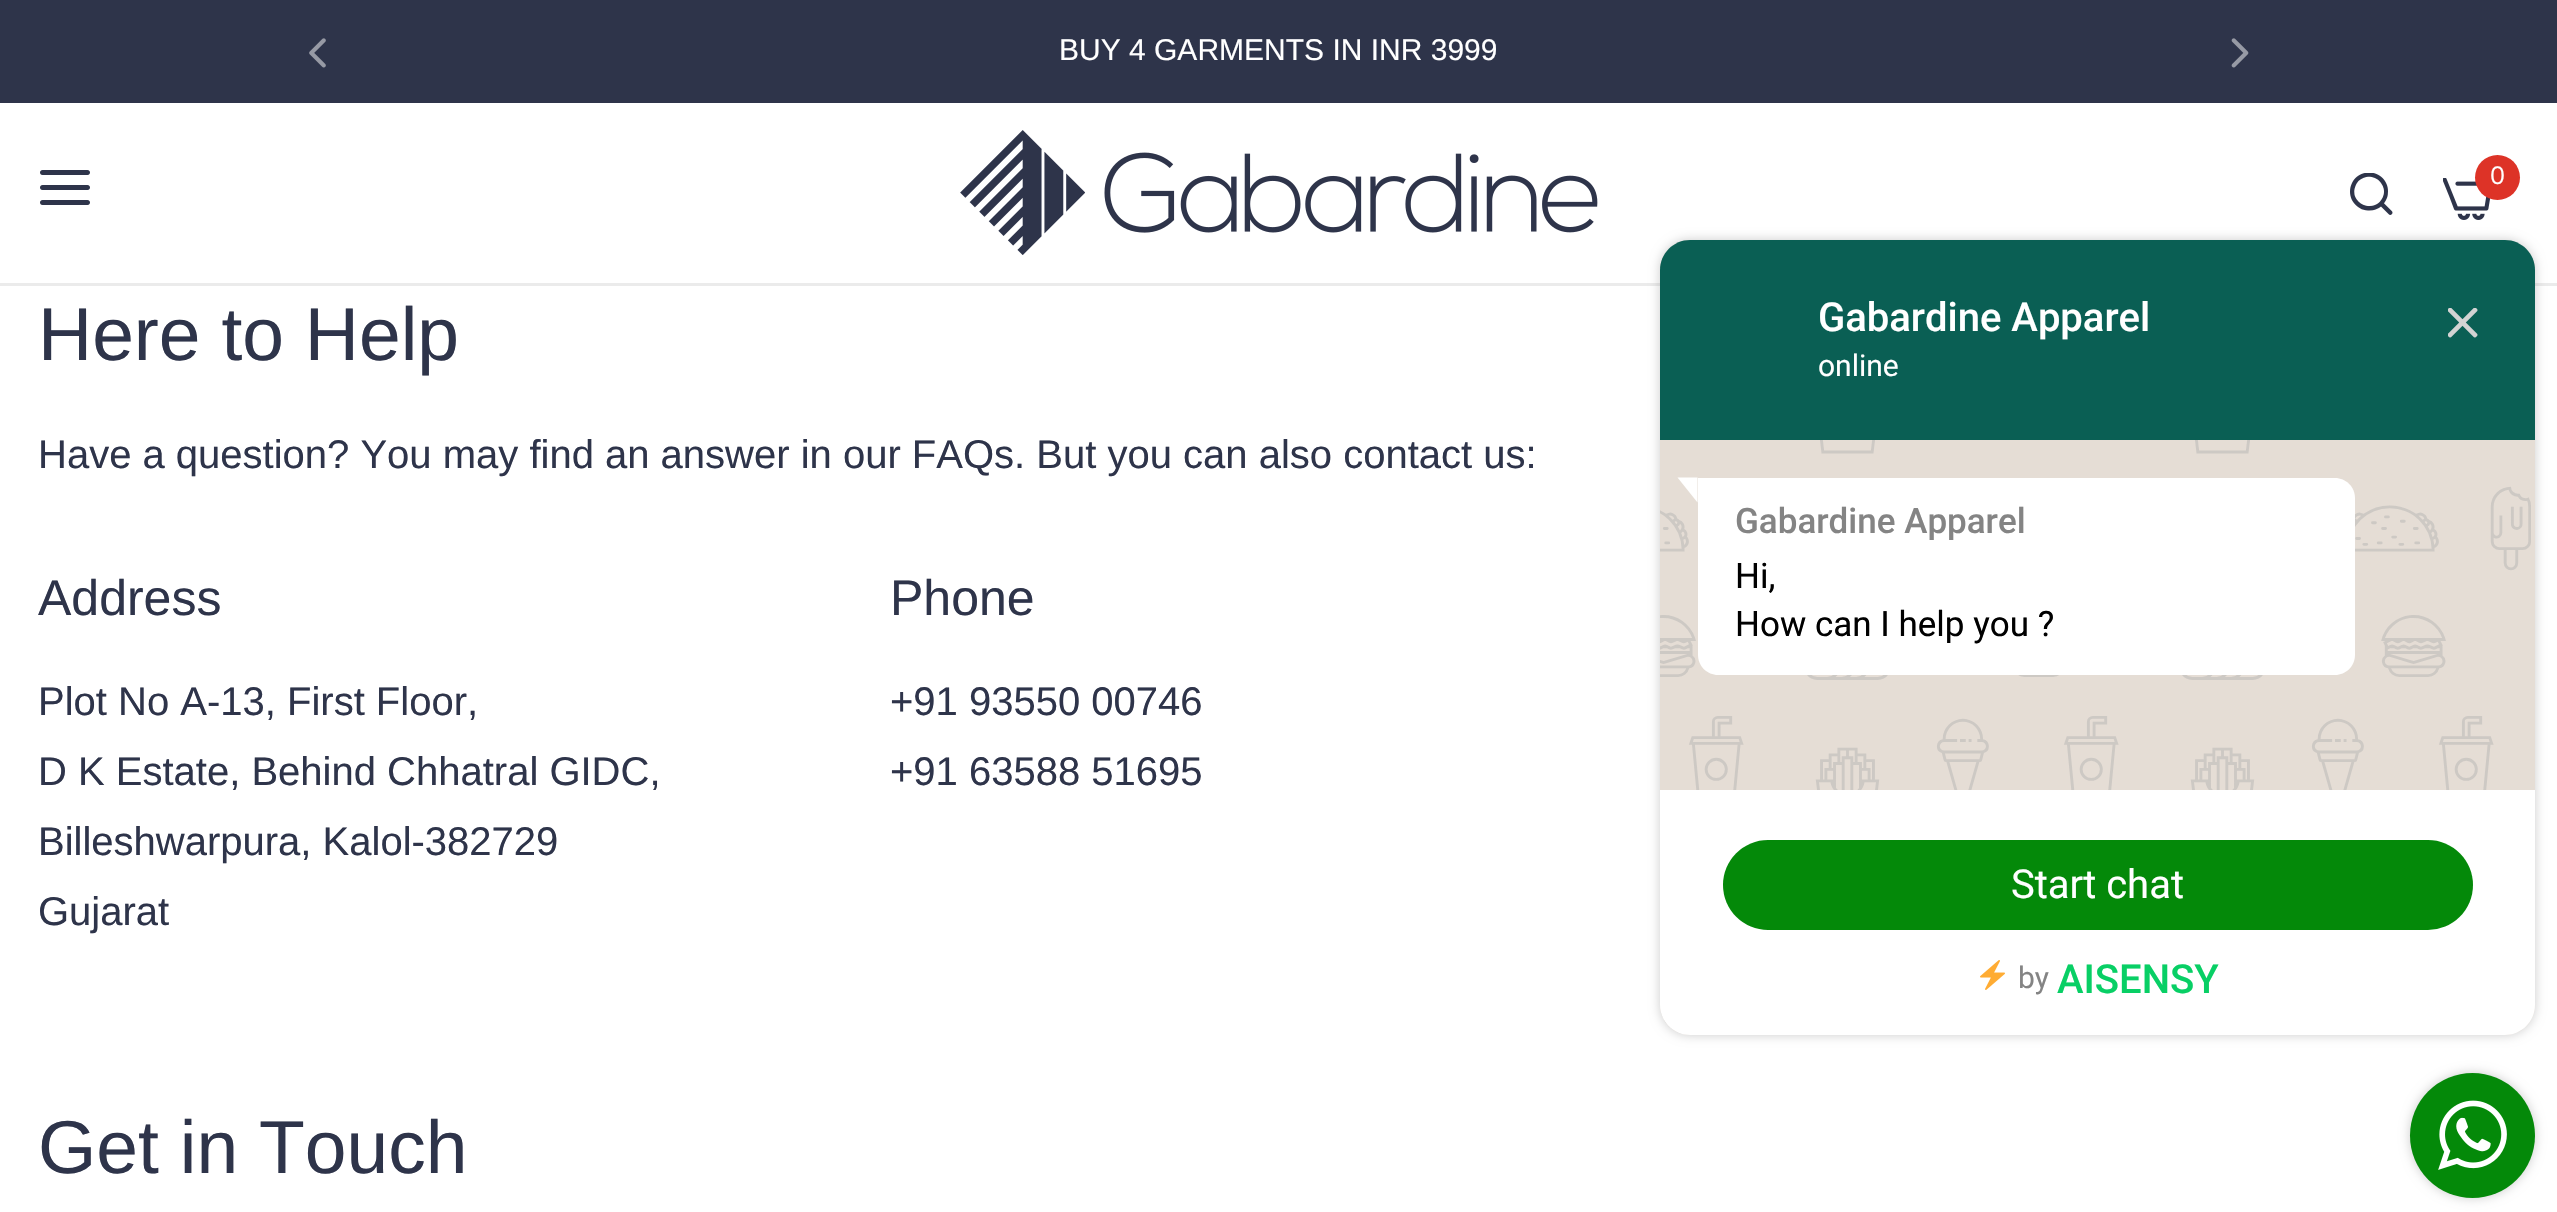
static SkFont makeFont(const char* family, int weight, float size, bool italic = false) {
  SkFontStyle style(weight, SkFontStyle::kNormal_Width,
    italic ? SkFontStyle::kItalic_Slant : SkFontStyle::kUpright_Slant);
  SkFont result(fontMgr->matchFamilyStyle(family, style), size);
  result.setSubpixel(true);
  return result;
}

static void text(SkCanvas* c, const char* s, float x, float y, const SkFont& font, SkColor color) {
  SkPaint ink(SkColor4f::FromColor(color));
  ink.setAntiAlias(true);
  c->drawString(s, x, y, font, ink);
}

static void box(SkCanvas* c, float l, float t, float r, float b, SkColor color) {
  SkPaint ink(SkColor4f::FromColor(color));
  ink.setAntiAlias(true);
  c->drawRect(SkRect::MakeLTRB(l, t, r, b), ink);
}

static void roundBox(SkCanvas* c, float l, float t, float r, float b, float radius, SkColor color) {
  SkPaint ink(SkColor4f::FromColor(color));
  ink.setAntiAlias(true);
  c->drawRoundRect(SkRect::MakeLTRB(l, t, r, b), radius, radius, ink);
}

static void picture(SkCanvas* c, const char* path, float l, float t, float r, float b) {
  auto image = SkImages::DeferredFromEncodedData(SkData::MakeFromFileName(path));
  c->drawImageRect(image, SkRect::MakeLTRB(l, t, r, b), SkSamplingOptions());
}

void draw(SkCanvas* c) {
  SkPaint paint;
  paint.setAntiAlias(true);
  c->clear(0xffffffff);
  box(c, 0, 0, 2557, 103, 0xff2e344a);
  picture(c, "img_01.png", 309, 38, 326, 68);
  SkFont face1 = makeFont("Liberation Sans", 400, 30);
  text(c, "BUY 4 GARMENTS IN INR 3999", 1059, 60, face1, 0xffffffff);
  picture(c, "img_02.png", 2231, 38, 2249, 68);
  box(c, 0, 283, 2557, 286, 0xffebebeb);
  picture(c, "img_03.png", 40, 170, 90, 205);
  picture(c, "img_04.png", 960, 130, 1598, 255);
  picture(c, "img_05.png", 2350, 173, 2393, 215);
  picture(c, "img_06.png", 2443, 178, 2491, 220);
  paint.setColor(0xffdd3327);
  c->drawCircle(2497.5f, 177.5f, 22.5f, paint);
  SkFont face2 = makeFont("Mulish", 400, 25);
  text(c, "0", 2490, 184, face2, 0xffffffff);
  SkFont face3 = makeFont("Liberation Sans", 400, 75);
  text(c, "Here to Help", 38, 360, face3, 0xff2e344a);
  SkFont face4 = makeFont("Liberation Sans", 400, 40);
  text(c, "Have a question? You may find an answer in our FAQs. But you can also contact us:", 38, 468, face4, 0xff2e344a);
  SkFont face5 = makeFont("Liberation Sans", 400, 50);
  text(c, "Address", 38, 615, face5, 0xff2e344a);
  text(c, "Plot No A-13, First Floor,", 38, 715, face4, 0xff2e344a);
  text(c, "D K Estate, Behind Chhatral GIDC,", 38, 785, face4, 0xff2e344a);
  text(c, "Billeshwarpura, Kalol-382729", 38, 855, face4, 0xff2e344a);
  text(c, "Gujarat", 38, 925, face4, 0xff2e344a);
  text(c, "Phone", 890, 615, face5, 0xff2e344a);
  text(c, "+91 93550 00746", 890, 715, face4, 0xff2e344a);
  text(c, "+91 63588 51695", 890, 785, face4, 0xff2e344a);
  text(c, "Get in Touch", 38, 1173, face3, 0xff2e344a);
  paint.setColor(0x33000000);
  paint.setMaskFilter(SkMaskFilter::MakeBlur(kNormal_SkBlurStyle, 5.5f));
  c->drawRoundRect(SkRect::MakeLTRB(1660, 240, 2535, 1035), 30, 30, paint);
  paint.setMaskFilter(nullptr);
  roundBox(c, 1660, 240, 2535, 1035, 30, 0xffe5ddd5);
  picture(c, "img_07.png", 1660, 243, 2531, 1034);
  paint.setColor(0xff0a5f54);
  c->drawPath(SkPathBuilder().moveTo(1690, 240).lineTo(2505, 240).cubicTo(2521.5f, 240, 2535, 253.5f, 2535, 270).lineTo(2535, 440).lineTo(1660, 440).lineTo(1660, 270).cubicTo(1660, 253.5f, 1673.5f, 240, 1690, 240).close().detach(), paint);
  SkFont face6 = makeFont("Roboto", 500, 40);
  text(c, "Gabardine Apparel", 1818, 331, face6, 0xffffffff);
  SkFont face7 = makeFont("Roboto", 400, 30);
  text(c, "online", 1818, 376, face7, 0xffffffff);
  picture(c, "img_08.png", 2448, 308, 2478, 338);
  paint.setColor(0xffffffff);
  c->drawPath(SkPathBuilder().moveTo(1698, 478).lineTo(2335, 478).cubicTo(2346, 478, 2355, 487, 2355, 498).lineTo(2355, 655).cubicTo(2355, 666, 2346, 675, 2335, 675).lineTo(1718, 675).cubicTo(1707, 675, 1698, 666, 1698, 655).close().detach(), paint);
  c->drawPath(SkPathBuilder().moveTo(1697.5f, 477.5f).lineTo(1697.5f, 502.5f).lineTo(1677.5f, 477.5f).close().detach(), paint);
  SkFont face8 = makeFont("Roboto", 500, 35);
  text(c, "Gabardine Apparel", 1735, 533, face8, 0xff848484);
  SkFont face9 = makeFont("Roboto", 400, 35);
  text(c, "Hi,", 1735, 588, face9, 0xff000000);
  text(c, "How can I help you ?", 1735, 636, face9, 0xff000000);
  c->drawPath(SkPathBuilder().moveTo(1660, 790).lineTo(2535, 790).lineTo(2535, 1005).cubicTo(2535, 1021.5f, 2521.5f, 1035, 2505, 1035).lineTo(1690, 1035).cubicTo(1673.5f, 1035, 1660, 1021.5f, 1660, 1005).close().detach(), paint);
  roundBox(c, 1723, 840, 2473, 930, 45, 0xff048909);
  SkFont face10 = makeFont("Roboto", 400, 40);
  text(c, "Start chat", 2011, 898, face10, 0xffffffff);
  picture(c, "img_09.png", 1980, 960, 2005, 990);
  text(c, "by", 2018, 988, face7, 0xff848484);
  text(c, "AISENSY", 2057, 993, face6, 0xff08cf65);
  paint.setColor(0x33000000);
  paint.setMaskFilter(SkMaskFilter::MakeBlur(kNormal_SkBlurStyle, 5.5f));
  c->drawRoundRect(SkRect::MakeLTRB(2410, 1073, 2535, 1198), 62.5f, 62.5f, paint);
  paint.setMaskFilter(nullptr);
  paint.setColor(0xff048909);
  c->drawCircle(2472.5f, 1135.5f, 62.5f, paint);
  picture(c, "img_10.png", 2438, 1100, 2507, 1170);
}
